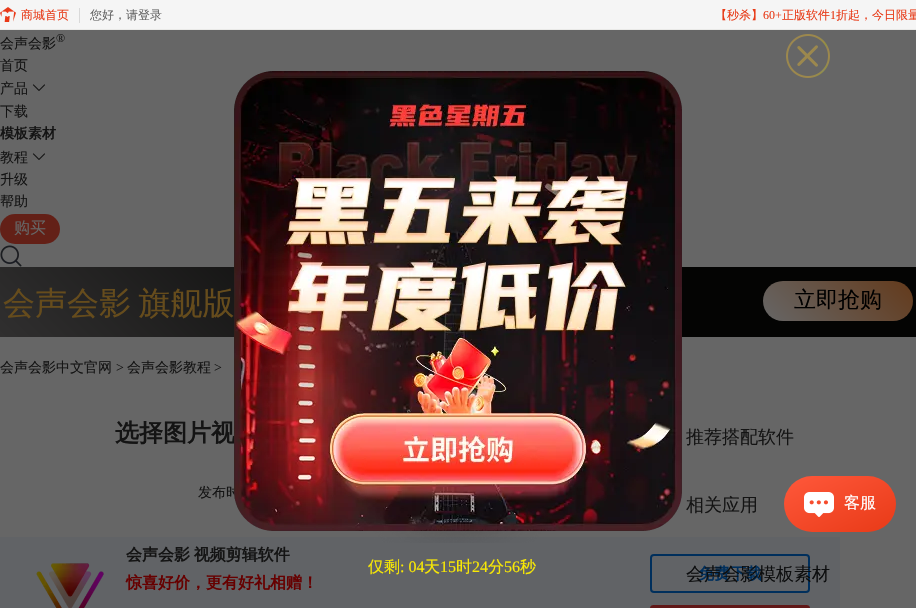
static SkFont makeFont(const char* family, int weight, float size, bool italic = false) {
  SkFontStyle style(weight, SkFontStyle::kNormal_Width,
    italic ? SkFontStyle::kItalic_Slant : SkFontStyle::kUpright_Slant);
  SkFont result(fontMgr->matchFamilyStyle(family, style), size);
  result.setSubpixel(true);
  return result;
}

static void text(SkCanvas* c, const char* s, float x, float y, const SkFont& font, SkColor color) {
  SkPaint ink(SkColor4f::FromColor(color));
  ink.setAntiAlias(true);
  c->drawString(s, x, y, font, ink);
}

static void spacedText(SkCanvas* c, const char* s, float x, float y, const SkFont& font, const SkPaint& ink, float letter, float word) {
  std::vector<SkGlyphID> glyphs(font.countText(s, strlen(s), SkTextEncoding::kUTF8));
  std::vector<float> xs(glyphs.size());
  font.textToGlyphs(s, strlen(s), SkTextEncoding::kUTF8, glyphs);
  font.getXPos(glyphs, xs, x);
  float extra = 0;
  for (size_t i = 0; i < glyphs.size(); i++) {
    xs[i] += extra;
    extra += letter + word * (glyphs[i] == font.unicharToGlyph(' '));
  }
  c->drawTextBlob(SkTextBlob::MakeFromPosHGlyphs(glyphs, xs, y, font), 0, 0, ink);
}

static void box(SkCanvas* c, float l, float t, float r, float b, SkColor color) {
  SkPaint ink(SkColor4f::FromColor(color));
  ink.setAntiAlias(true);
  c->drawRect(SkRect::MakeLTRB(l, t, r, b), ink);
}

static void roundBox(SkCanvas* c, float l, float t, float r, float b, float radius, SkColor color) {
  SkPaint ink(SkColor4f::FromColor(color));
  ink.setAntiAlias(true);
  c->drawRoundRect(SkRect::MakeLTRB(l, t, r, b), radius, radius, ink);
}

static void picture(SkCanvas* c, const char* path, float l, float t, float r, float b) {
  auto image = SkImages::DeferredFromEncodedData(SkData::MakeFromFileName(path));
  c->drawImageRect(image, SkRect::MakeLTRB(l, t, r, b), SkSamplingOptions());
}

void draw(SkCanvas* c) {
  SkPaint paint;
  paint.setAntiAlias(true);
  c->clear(0xff666666);
  box(c, 0, 0, 916, 29, 0xfff5f5f5);
  box(c, 0, 29, 916, 30, 0xffe9e9e7);
  picture(c, "img_01.png", 0, 7, 16, 22);
  SkFont face1 = makeFont("WenQuanYi Zen Hei", 500, 12);
  text(c, "商城首页", 21, 19, face1, 0xffe83a17);
  box(c, 79, 8, 80, 23, 0xffd9d9d9);
  text(c, "您好，请登录", 90, 19, face1, 0xff666666);
  text(c, "【秒杀】", 715, 19, face1, 0xffe83a17);
  SkFont face2 = makeFont("Liberation Serif", 400, 12);
  text(c, "60+", 763, 19, face2, 0xffe83a17);
  text(c, "正版软件", 782, 19, face1, 0xffe83a17);
  text(c, "1", 830, 19, face2, 0xffe83a17);
  text(c, "折起，今日限量", 836, 19, face1, 0xffe83a17);
  SkFont face3 = makeFont("WenQuanYi Zen Hei", 500, 14);
  text(c, "会声会影", 0, 48, face3, 0xff141414);
  text(c, "®", 56, 42, face2, 0xff141414);
  text(c, "首页", 0, 70, face3, 0xff141414);
  text(c, "产品", 0, 93, face3, 0xff141414);
  picture(c, "img_02.png", 32, 84, 45, 91);
  text(c, "下载", 0, 116, face3, 0xff141414);
  SkFont face4 = makeFont("WenQuanYi Zen Hei", 700, 14);
  text(c, "模板素材", 0, 138, face4, 0xff141414);
  text(c, "教程", 0, 162, face3, 0xff141414);
  picture(c, "img_02.png", 32, 153, 45, 160);
  text(c, "升级", 0, 184, face3, 0xff141414);
  text(c, "帮助", 0, 206, face3, 0xff141414);
  roundBox(c, 0, 214, 60, 244, 15, 0xff632017);
  SkFont face5 = makeFont("WenQuanYi Zen Hei", 500, 16);
  text(c, "购买", 14, 233, face5, 0xff666666);
  picture(c, "img_03.png", 0, 245, 22, 267);
  {
    const SkColor colors[] = {0xff302f2f, 0xff040403};
    const float stops[] = {0, 0.54f};
    const SkPoint ends[] = {{212, 549}, {705, 56}};
    paint.setShader(SkGradientShader::MakeLinear(ends, colors, stops, 2, SkTileMode::kClamp));
    paint.setAlpha(255);
  }
  c->drawRect(SkRect::MakeLTRB(0, 267, 916, 337), paint);
  SkFont face6 = makeFont("WenQuanYi Zen Hei", 500, 32);
  paint.setShader(nullptr);
  paint.setColor(0xff664c1c);
  spacedText(c, "会声会影 旗舰版", 3, 314, face6, paint, 0, -2);
  {
    const SkColor colors[] = {0xff666666, 0xff643d20};
    const float stops[] = {0, 0.94f};
    const SkPoint ends[] = {{791, 349}, {886, 254}};
    paint.setShader(SkGradientShader::MakeLinear(ends, colors, stops, 2, SkTileMode::kClamp));
    paint.setAlpha(255);
  }
  c->drawRoundRect(SkRect::MakeLTRB(763, 281, 913, 321), 20, 20, paint);
  SkFont face7 = makeFont("WenQuanYi Zen Hei", 500, 22);
  text(c, "立即抢购", 794, 307, face7, 0xff000000);
  text(c, "会声会影中文官网", 0, 372, face3, 0xff141414);
  SkFont face8 = makeFont("Liberation Serif", 400, 14);
  text(c, ">", 116, 372, face8, 0xff141414);
  text(c, "会声会影教程", 127, 372, face3, 0xff141414);
  text(c, ">", 214, 372, face8, 0xff141414);
  SkFont face9 = makeFont("WenQuanYi Zen Hei", 700, 24);
  text(c, "选择图片视", 115, 441, face9, 0xff141414);
  text(c, "发布时", 198, 497, face3, 0xff141414);
  box(c, 0, 537, 840, 608, 0xff616366);
  picture(c, "img_04.png", 36, 563, 104, 608);
  SkFont face10 = makeFont("WenQuanYi Zen Hei", 700, 16);
  paint.setShader(nullptr);
  paint.setColor(0xff141414);
  spacedText(c, "会声会影 视频剪辑软件", 126, 560, face10, paint, 0, -1);
  text(c, "惊喜好价，更有好礼相赠！", 126, 588, face10, 0xff660000);
  paint.setStyle(SkPaint::kStroke_Style);
  paint.setStrokeWidth(2);
  paint.setColor(0xff002f5c);
  c->drawRoundRect(SkRect::MakeLTRB(651, 555, 809, 592), 3, 3, paint);
  text(c, "免费下载", 698, 579, face10, 0xff002f5c);
  roundBox(c, 650, 605, 810, 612, 4, 0xff611818);
  SkFont face11 = makeFont("WenQuanYi Zen Hei", 500, 18);
  text(c, "推荐搭配软件", 686, 443, face11, 0xff141414);
  text(c, "相关应用", 686, 511, face11, 0xff141414);
  text(c, "会声会影模板素材", 686, 580, face11, 0xff0d0e0f);
  paint.setStyle(SkPaint::kFill_Style);
  {
    const SkColor colors[] = {0xffe83a17, 0xffff583b};
    const float stops[] = {0, 1};
    const SkPoint ends[] = {{862, 549}, {818, 459}};
    paint.setShader(SkGradientShader::MakeLinear(ends, colors, stops, 2, SkTileMode::kClamp));
    paint.setAlpha(255);
  }
  c->drawRoundRect(SkRect::MakeLTRB(784, 476, 896, 532), 28, 28, paint);
  picture(c, "img_05.png", 804, 492, 834, 517);
  text(c, "客服", 844, 508, face5, 0xffffffff);
  picture(c, "img_06.png", 786, 34, 830, 78);
  picture(c, "img_07.png", 234, 71, 682, 543);
  text(c, "仅剩", 368, 572, face5, 0xfff9e904);
  SkFont face12 = makeFont("Liberation Serif", 400, 16);
  text(c, ": 04", 400, 572, face12, 0xfff9e904);
  text(c, "天", 424, 572, face5, 0xfff9e904);
  text(c, "15", 440, 572, face12, 0xfff9e904);
  text(c, "时", 456, 572, face5, 0xfff9e904);
  text(c, "24", 472, 572, face12, 0xfff9e904);
  text(c, "分", 488, 572, face5, 0xfff9e904);
  text(c, "56", 504, 572, face12, 0xfff9e904);
  text(c, "秒", 520, 572, face5, 0xfff9e904);
}
